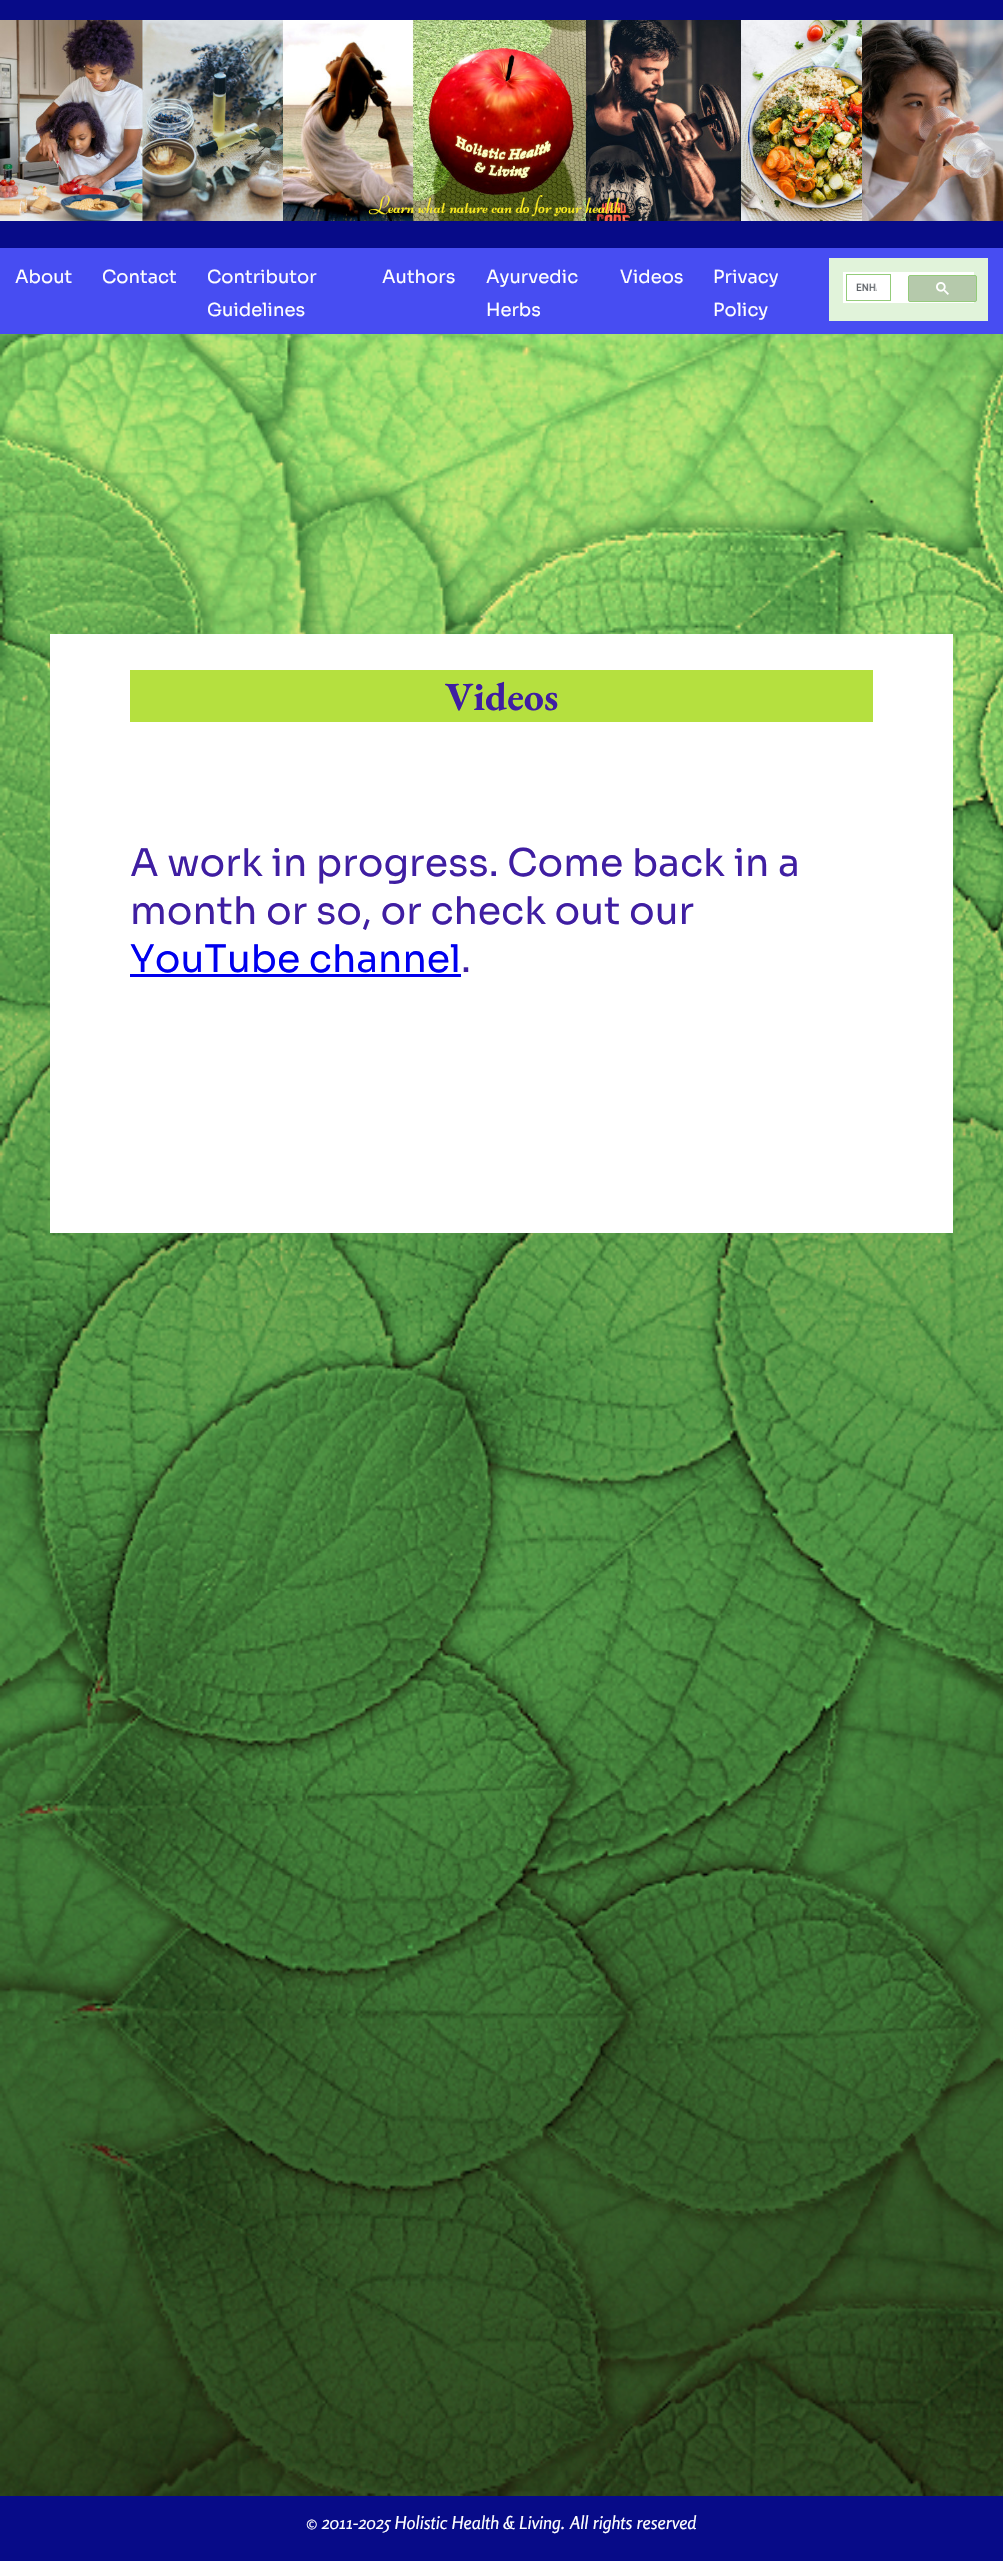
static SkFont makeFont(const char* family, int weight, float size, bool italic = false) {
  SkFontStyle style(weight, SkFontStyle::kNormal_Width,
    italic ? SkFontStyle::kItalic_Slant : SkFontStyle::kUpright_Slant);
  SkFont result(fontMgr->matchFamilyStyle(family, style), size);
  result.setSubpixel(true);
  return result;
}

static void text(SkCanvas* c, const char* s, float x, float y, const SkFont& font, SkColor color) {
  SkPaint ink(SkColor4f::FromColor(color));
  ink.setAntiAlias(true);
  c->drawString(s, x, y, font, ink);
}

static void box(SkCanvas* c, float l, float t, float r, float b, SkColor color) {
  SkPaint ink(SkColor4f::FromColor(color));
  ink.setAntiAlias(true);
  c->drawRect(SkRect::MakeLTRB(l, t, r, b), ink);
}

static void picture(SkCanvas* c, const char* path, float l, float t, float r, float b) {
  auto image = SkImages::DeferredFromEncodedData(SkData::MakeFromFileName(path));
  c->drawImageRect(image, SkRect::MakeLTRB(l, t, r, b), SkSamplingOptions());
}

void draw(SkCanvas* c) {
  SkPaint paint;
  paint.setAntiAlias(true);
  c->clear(0xffffffff);
  picture(c, "img_01.png", 0, 334, 1003, 2496);
  box(c, 0, 0, 1003, 248, 0xff070b88);
  picture(c, "img_02.png", 0, 20, 1003, 221);
  box(c, 0, 248, 1003, 334, 0xff474df2);
  SkFont face1 = makeFont("Sora", 400, 18);
  text(c, "About", 15, 283, face1, 0xffffffff);
  text(c, "Contact", 102, 283, face1, 0xffffffff);
  text(c, "Contributor", 207, 283, face1, 0xffffffff);
  text(c, "Guidelines", 207, 316, face1, 0xffffffff);
  text(c, "Authors", 382, 283, face1, 0xffffffff);
  text(c, "Ayurvedic", 486, 283, face1, 0xffffffff);
  text(c, "Herbs", 486, 316, face1, 0xffffffff);
  text(c, "Videos", 620, 283, face1, 0xffffffff);
  text(c, "Privacy", 713, 283, face1, 0xffffffff);
  text(c, "Policy", 713, 316, face1, 0xffffffff);
  box(c, 829, 258, 988, 321, 0xffe1f3da);
  box(c, 843, 272, 974, 303, 0xffffffff);
  paint.setStyle(SkPaint::kStroke_Style);
  paint.setStrokeWidth(1);
  paint.setColor(0xff94cc7a);
  c->drawRect(SkRect::MakeLTRB(846.5f, 274.5f, 890.5f, 300.5f), paint);
  picture(c, "img_03.png", 856, 283, 877, 291);
  paint.setStyle(SkPaint::kFill_Style);
  paint.setColor(0xffb5c9ab);
  c->drawRoundRect(SkRect::MakeLTRB(908.5f, 275.5f, 976.5f, 301.5f), 1.5f, 1.5f, paint);
  paint.setStyle(SkPaint::kStroke_Style);
  paint.setColor(0xff94cc7a);
  c->drawRoundRect(SkRect::MakeLTRB(908.5f, 275.5f, 976.5f, 301.5f), 1.5f, 1.5f, paint);
  picture(c, "img_04.png", 936, 282, 949, 295);
  box(c, 50, 634, 953, 1233, 0xffffffff);
  box(c, 130, 670, 873, 722, 0xffb5e03f);
  SkFont face2 = makeFont("EB Garamond", 700, 40);
  text(c, "Videos", 445, 710, face2, 0xff3f1ea2);
  SkFont face3 = makeFont("Sora", 400, 38);
  text(c, "A work in progress. Come back in a", 130, 876, face3, 0xff3f1ea2);
  text(c, "month or so, or check out our", 130, 924, face3, 0xff3f1ea2);
  text(c, "YouTube channel", 130, 972, face3, 0xff0000ee);
  text(c, ".", 461, 972, face3, 0xff3f1ea2);
  box(c, 130, 974, 461, 977, 0xff0000ee);
  box(c, 0, 2496, 1003, 2561, 0xff070b88);
  SkFont face4 = makeFont("Rosario", 400, 18, true);
  text(c, "© 2011-2025 Holistic Health & Living. All rights reserved", 306, 2529, face4, 0xffffffff);
}
